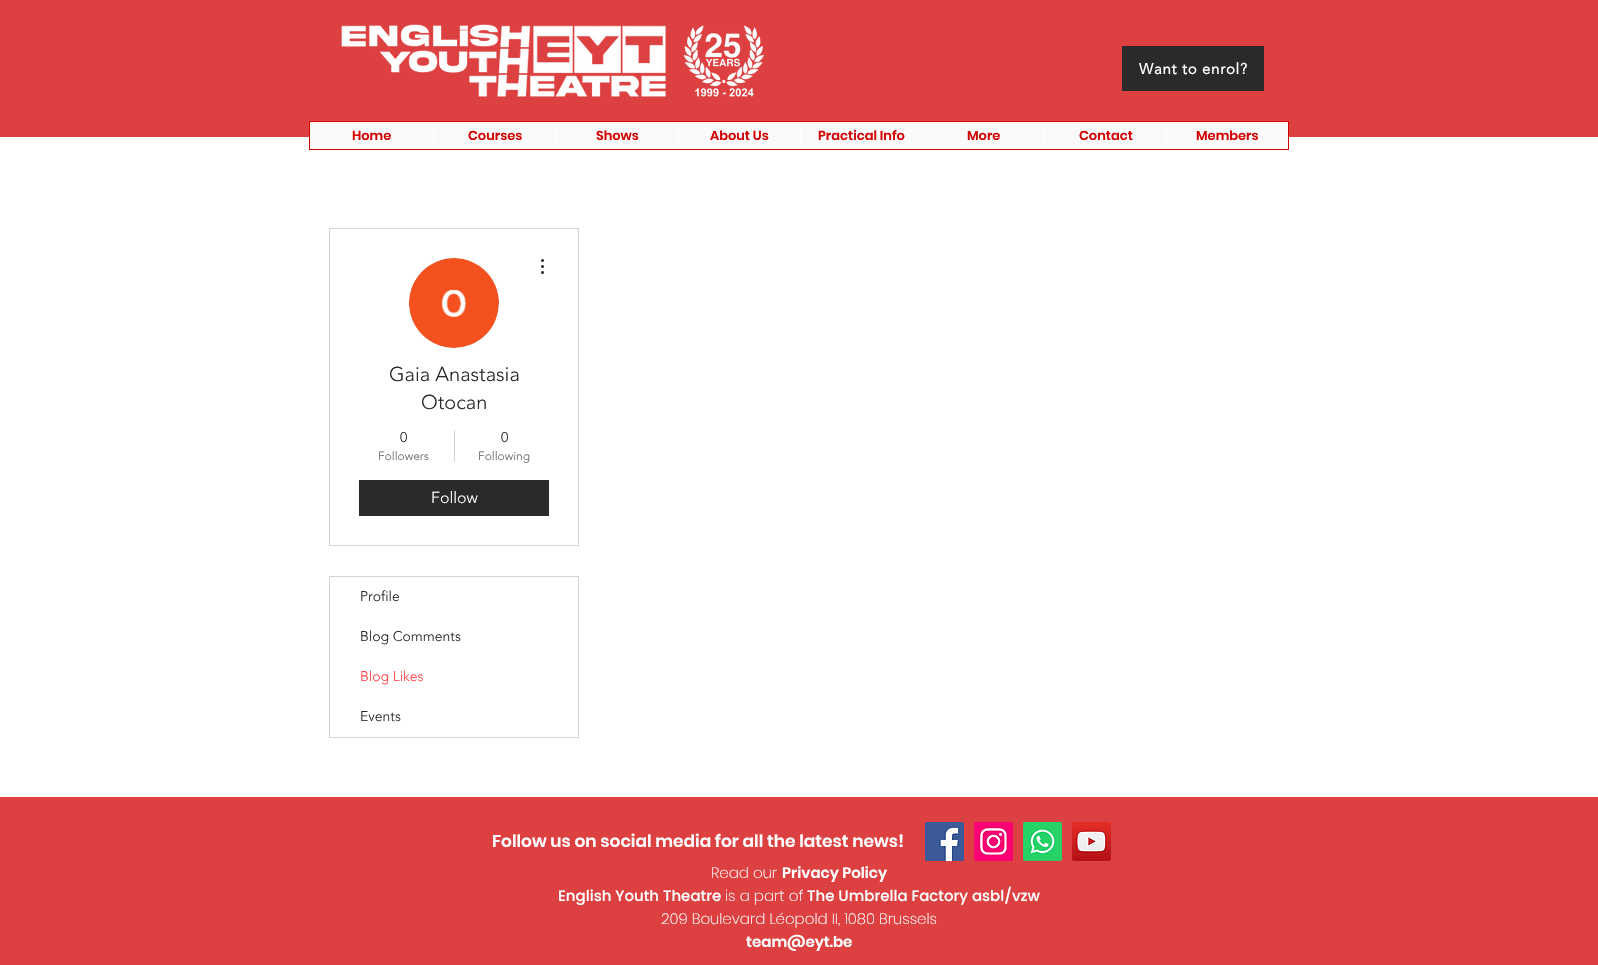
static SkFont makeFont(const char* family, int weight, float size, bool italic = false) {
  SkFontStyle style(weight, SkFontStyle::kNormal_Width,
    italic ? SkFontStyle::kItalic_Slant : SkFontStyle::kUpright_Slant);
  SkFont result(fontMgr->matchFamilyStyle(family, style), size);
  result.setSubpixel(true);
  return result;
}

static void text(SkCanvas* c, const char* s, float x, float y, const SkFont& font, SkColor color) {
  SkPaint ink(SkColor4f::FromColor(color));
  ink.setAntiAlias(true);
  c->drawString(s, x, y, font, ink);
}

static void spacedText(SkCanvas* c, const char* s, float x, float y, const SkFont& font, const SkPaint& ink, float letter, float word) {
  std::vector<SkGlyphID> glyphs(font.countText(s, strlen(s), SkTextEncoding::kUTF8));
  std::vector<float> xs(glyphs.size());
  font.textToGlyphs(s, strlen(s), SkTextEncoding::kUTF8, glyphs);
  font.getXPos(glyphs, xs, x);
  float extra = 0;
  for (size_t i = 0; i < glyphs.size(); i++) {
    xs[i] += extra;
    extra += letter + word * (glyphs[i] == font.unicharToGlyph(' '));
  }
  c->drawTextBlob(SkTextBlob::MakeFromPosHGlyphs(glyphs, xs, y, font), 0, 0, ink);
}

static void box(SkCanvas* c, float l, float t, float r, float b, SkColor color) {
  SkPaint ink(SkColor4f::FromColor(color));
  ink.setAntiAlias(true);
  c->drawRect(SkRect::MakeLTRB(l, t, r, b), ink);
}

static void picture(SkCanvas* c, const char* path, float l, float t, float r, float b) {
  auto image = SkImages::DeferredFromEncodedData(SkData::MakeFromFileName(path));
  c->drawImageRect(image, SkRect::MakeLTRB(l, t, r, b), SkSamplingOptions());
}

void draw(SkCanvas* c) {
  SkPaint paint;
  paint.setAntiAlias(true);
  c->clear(0xffffffff);
  box(c, 0, 0, 1598, 137, 0xffdd4040);
  picture(c, "img_01.png", 341, 24, 666, 97);
  picture(c, "img_02.png", 683, 25, 764, 97);
  box(c, 1122, 46, 1264, 91, 0xff2a2a2a);
  SkFont face1 = makeFont("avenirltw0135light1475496", 700, 15);
  paint.setColor(0xffffffff);
  spacedText(c, "Want to enrol?", 1139, 74, face1, paint, 0.75f, 0);
  paint.setColor(0xfffafafa);
  c->drawRect(SkRect::MakeLTRB(309.5f, 121.5f, 1288.5f, 149.5f), paint);
  paint.setStyle(SkPaint::kStroke_Style);
  paint.setStrokeWidth(1);
  paint.setColor(0xffd20000);
  c->drawRect(SkRect::MakeLTRB(309.5f, 121.5f, 1288.5f, 149.5f), paint);
  SkFont face2 = makeFont("Poppins", 600, 13);
  text(c, "Home", 352, 140, face2, 0xffd20000);
  box(c, 433, 122, 434, 149, 0xffffffff);
  text(c, "Courses", 468, 140, face2, 0xffd20000);
  box(c, 556, 122, 557, 149, 0xffffffff);
  text(c, "Shows", 596, 140, face2, 0xffd20000);
  box(c, 678, 122, 679, 149, 0xffffffff);
  text(c, "About Us", 710, 140, face2, 0xffd20000);
  box(c, 800, 122, 801, 149, 0xffffffff);
  text(c, "Practical Info", 818, 140, face2, 0xffd20000);
  box(c, 922, 122, 923, 149, 0xffffffff);
  text(c, "More", 967, 140, face2, 0xffd20000);
  box(c, 1044, 122, 1045, 149, 0xffffffff);
  text(c, "Contact", 1079, 140, face2, 0xffd20000);
  box(c, 1166, 122, 1167, 149, 0xffffffff);
  text(c, "Members", 1196, 140, face2, 0xffd20000);
  paint.setColor(0xffd4d4d4);
  c->drawRect(SkRect::MakeLTRB(329.5f, 228.5f, 578.5f, 545.5f), paint);
  paint.setStyle(SkPaint::kFill_Style);
  paint.setColor(0xffd8d8d8);
  c->drawCircle(454, 303, 45, paint);
  picture(c, "img_03.png", 409, 258, 499, 348);
  picture(c, "img_04.png", 541, 259, 544, 274);
  SkFont face3 = makeFont("avenirltw0135light1475496", 300, 20);
  text(c, "Gaia Anastasia", 389, 381, face3, 0xff2a2a2a);
  text(c, "Otocan", 421, 409, face3, 0xff2a2a2a);
  SkFont face4 = makeFont("avenirltw0135light1475496", 300, 14);
  text(c, "0", 400, 442, face4, 0xff2a2a2a);
  SkFont face5 = makeFont("avenirltw0135light1475496", 300, 12);
  text(c, "Followers", 378, 460, face5, 0xff6a6a6a);
  box(c, 454, 430, 455, 462, 0xffd4d4d4);
  text(c, "0", 501, 442, face4, 0xff2a2a2a);
  text(c, "Following", 478, 460, face5, 0xff6a6a6a);
  box(c, 359, 480, 549, 516, 0xff2a2a2a);
  SkFont face6 = makeFont("avenirltw0135light1475496", 300, 16);
  text(c, "Follow", 431, 503, face6, 0xffffffff);
  paint.setStyle(SkPaint::kStroke_Style);
  paint.setColor(0xffd4d4d4);
  c->drawRect(SkRect::MakeLTRB(329.5f, 576.5f, 578.5f, 737.5f), paint);
  text(c, "Profile", 360, 601, face4, 0xff2a2a2a);
  text(c, "Blog Comments", 360, 641, face4, 0xff2a2a2a);
  text(c, "Blog Likes", 360, 681, face4, 0xffff4041);
  text(c, "Events", 360, 721, face4, 0xff2a2a2a);
  box(c, 0, 797, 1598, 965, 0xffdd4040);
  SkFont face7 = makeFont("Poppins", 600, 17);
  text(c, "Follow us on social media for all the latest news!", 492, 847, face7, 0xffffffff);
  picture(c, "img_05.png", 925, 822, 964, 861);
  picture(c, "img_06.png", 974, 822, 1013, 861);
  picture(c, "img_07.png", 1023, 822, 1062, 861);
  picture(c, "img_08.png", 1072, 822, 1111, 861);
  SkFont face8 = makeFont("Poppins", 200, 15);
  text(c, "Read our", 711, 878, face8, 0xffffffff);
  SkFont face9 = makeFont("Poppins", 600, 15);
  text(c, "Privacy Policy", 782, 878, face9, 0xffffffff);
  SkFont face10 = makeFont("Poppins", 500, 15);
  text(c, "English Youth Theatre", 558, 901, face10, 0xffffffff);
  text(c, "is a part of", 725, 901, face8, 0xffffffff);
  text(c, "The Umbrella Factory asbl/vzw", 807, 901, face10, 0xffffffff);
  text(c, "209 Boulevard Léopold II, 1080 Brussels", 661, 924, face8, 0xffffffff);
  text(c, "team@eyt.be", 746, 947, face9, 0xffffffff);
}
